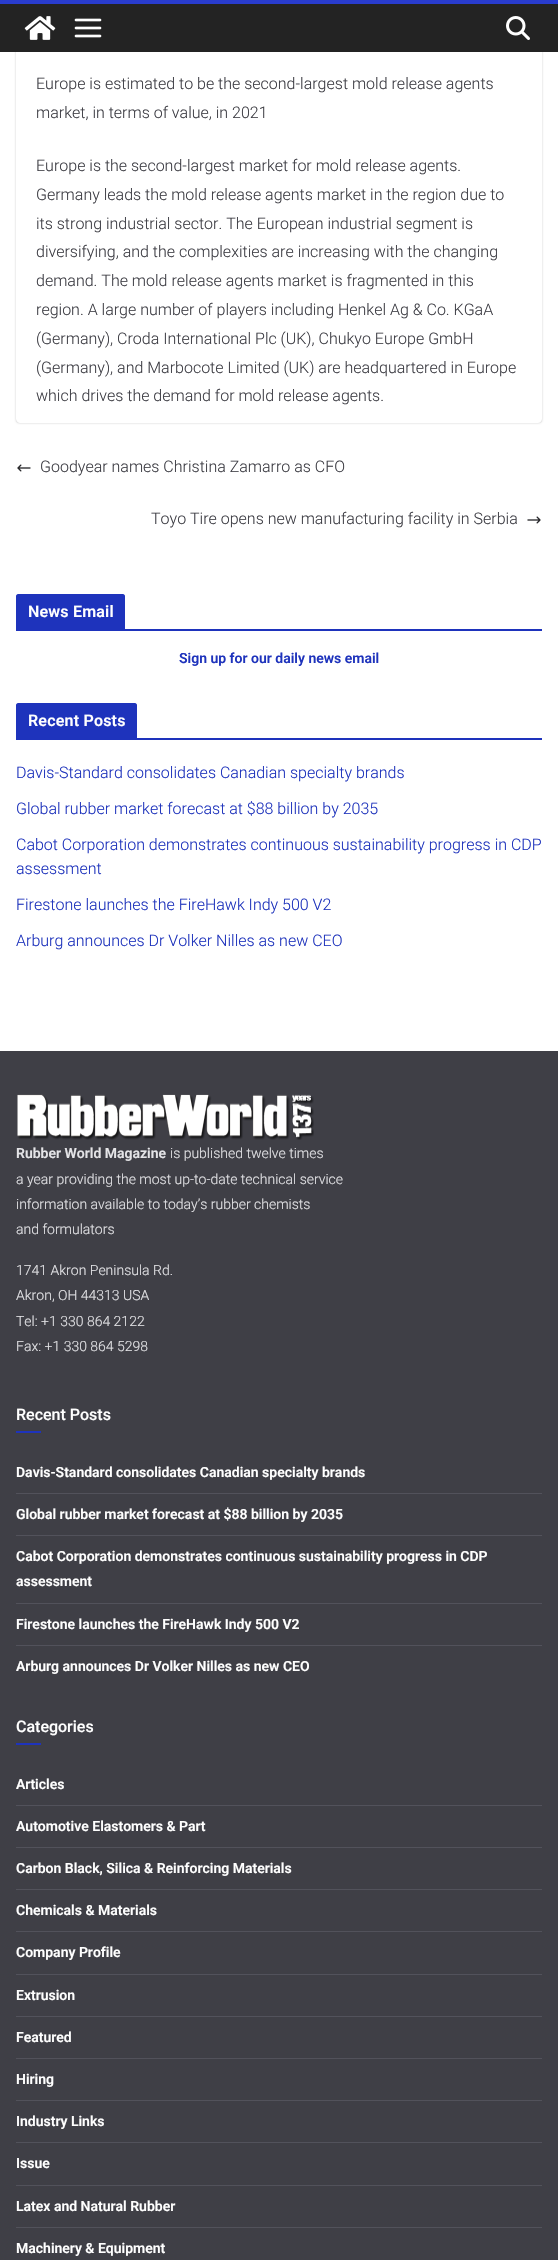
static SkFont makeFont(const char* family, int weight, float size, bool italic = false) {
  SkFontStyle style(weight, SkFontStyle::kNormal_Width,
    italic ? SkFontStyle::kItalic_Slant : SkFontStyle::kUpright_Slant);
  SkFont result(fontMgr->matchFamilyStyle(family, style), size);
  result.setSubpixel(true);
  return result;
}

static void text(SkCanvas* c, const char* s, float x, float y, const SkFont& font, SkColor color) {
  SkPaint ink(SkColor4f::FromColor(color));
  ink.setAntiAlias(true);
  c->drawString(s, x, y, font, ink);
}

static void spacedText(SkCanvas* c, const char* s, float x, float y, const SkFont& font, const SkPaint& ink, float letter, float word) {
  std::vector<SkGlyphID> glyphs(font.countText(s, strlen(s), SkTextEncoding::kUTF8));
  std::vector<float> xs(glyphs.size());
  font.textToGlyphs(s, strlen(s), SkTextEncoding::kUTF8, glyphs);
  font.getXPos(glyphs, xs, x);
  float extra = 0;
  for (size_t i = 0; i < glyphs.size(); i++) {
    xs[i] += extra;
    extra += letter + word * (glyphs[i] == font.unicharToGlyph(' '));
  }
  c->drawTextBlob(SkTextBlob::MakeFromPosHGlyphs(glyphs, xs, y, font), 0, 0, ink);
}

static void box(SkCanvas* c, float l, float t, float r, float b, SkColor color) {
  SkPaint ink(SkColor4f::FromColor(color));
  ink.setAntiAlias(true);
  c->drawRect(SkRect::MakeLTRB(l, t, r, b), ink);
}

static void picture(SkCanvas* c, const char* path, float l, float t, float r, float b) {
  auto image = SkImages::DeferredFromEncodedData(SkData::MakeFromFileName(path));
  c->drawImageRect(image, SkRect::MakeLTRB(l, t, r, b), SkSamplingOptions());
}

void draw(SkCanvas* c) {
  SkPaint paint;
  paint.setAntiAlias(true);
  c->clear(0xffffffff);
  c->save();
  c->clipPath(SkPathBuilder(SkPathFillType::kEvenOdd).moveTo(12, 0).lineTo(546, 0).lineTo(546, 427).lineTo(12, 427).close().moveTo(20, -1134).lineTo(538, -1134).cubicTo(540, -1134, 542, -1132, 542, -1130).lineTo(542, 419).cubicTo(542, 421, 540, 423, 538, 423).lineTo(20, 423).cubicTo(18, 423, 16, 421, 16, 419).lineTo(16, -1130).cubicTo(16, -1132, 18, -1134, 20, -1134).close().detach(), true);
  paint.setColor(0x3d000000);
  paint.setMaskFilter(SkMaskFilter::MakeBlur(kNormal_SkBlurStyle, 1));
  c->drawRoundRect(SkRect::MakeLTRB(16, -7, 542, 423), 4, 4, paint);
  paint.setMaskFilter(nullptr);
  c->restore();
  box(c, 0, 4, 558, 52, 0xff232323);
  box(c, 0, 0, 558, 4, 0xff293cce);
  picture(c, "img_01.png", 24, 16, 56, 40);
  picture(c, "img_02.png", 74, 18, 102, 38);
  picture(c, "img_03.png", 506, 16, 530, 40);
  SkFont face1 = makeFont("Roboto", 300, 16);
  text(c, "Europe is estimated to be the second-largest mold release agents", 36, 89, face1, 0xff3f3f46);
  text(c, "market, in terms of value, in 2021", 36, 118, face1, 0xff3f3f46);
  text(c, "Europe is the second-largest market for mold release agents.", 36, 171, face1, 0xff3f3f46);
  text(c, "Germany leads the mold release agents market in the region due to", 36, 200, face1, 0xff3f3f46);
  text(c, "its strong industrial sector. The European industrial segment is", 36, 229, face1, 0xff3f3f46);
  text(c, "diversifying, and the complexities are increasing with the changing", 36, 257, face1, 0xff3f3f46);
  text(c, "demand. The mold release agents market is fragmented in this", 36, 286, face1, 0xff3f3f46);
  text(c, "region. A large number of players including Henkel Ag & Co. KGaA", 36, 315, face1, 0xff3f3f46);
  text(c, "(Germany), Croda International Plc (UK), Chukyo Europe GmbH", 36, 344, face1, 0xff3f3f46);
  text(c, "(Germany), and Marbocote Limited (UK) are headquartered in Europe", 36, 373, face1, 0xff3f3f46);
  text(c, "which drives the demand for mold release agents.", 36, 401, face1, 0xff3f3f46);
  picture(c, "img_04.png", 17, 464, 31, 472);
  text(c, "Goodyear names Christina Zamarro as CFO", 40, 472, face1, 0xff3f3f46);
  text(c, "Toyo Tire opens new manufacturing facility in Serbia", 151, 524, face1, 0xff3f3f46);
  picture(c, "img_05.png", 527, 516, 541, 524);
  box(c, 16, 629, 542, 631, 0xff1e33bc);
  paint.setColor(0xff1e33bc);
  c->drawPath(SkPathBuilder().moveTo(18, 594).lineTo(123, 594).cubicTo(124, 594, 125, 595, 125, 596).lineTo(125, 629).lineTo(16, 629).lineTo(16, 596).cubicTo(16, 595, 17, 594, 18, 594).close().detach(), paint);
  SkFont face2 = makeFont("Roboto", 600, 16);
  paint.setColor(0xffffffff);
  spacedText(c, "News Email", 28, 617, face2, paint, 0.2f, 0);
  SkFont face3 = makeFont("Roboto", 600, 14);
  text(c, "Sign up for our daily news email", 179, 663, face3, 0xff1e33bc);
  box(c, 16, 738, 542, 740, 0xff1e33bc);
  paint.setColor(0xff1e33bc);
  c->drawPath(SkPathBuilder().moveTo(18, 703).lineTo(135, 703).cubicTo(136, 703, 137, 704, 137, 705).lineTo(137, 738).lineTo(16, 738).lineTo(16, 705).cubicTo(16, 704, 17, 703, 18, 703).close().detach(), paint);
  paint.setColor(0xffffffff);
  spacedText(c, "Recent Posts", 28, 726, face2, paint, 0.2f, 0);
  text(c, "Davis-Standard consolidates Canadian specialty brands", 16, 778, face1, 0xff1e33bc);
  text(c, "Global rubber market forecast at $88 billion by 2035", 16, 814, face1, 0xff1e33bc);
  text(c, "Cabot Corporation demonstrates continuous sustainability progress in CDP", 16, 850, face1, 0xff1e33bc);
  text(c, "assessment", 16, 874, face1, 0xff1e33bc);
  text(c, "Firestone launches the FireHawk Indy 500 V2", 16, 910, face1, 0xff1e33bc);
  text(c, "Arburg announces Dr Volker Nilles as new CEO", 16, 946, face1, 0xff1e33bc);
  box(c, 0, 1051, 558, 2260, 0xff3f3f46);
  picture(c, "img_06.png", 17, 1094, 314, 1140);
  text(c, "Rubber World Magazine", 16, 1158, face3, 0xffe4e4e7);
  SkFont face4 = makeFont("Roboto", 300, 14);
  text(c, "is published twelve times", 170, 1158, face4, 0xffe4e4e7);
  text(c, "a year providing the most up-to-date technical service", 16, 1184, face4, 0xffe4e4e7);
  text(c, "information available to today’s rubber chemists", 16, 1209, face4, 0xffe4e4e7);
  text(c, "and formulators", 16, 1234, face4, 0xffe4e4e7);
  text(c, "1741 Akron Peninsula Rd.", 16, 1275, face4, 0xffe4e4e7);
  text(c, "Akron, OH 44313 USA", 16, 1300, face4, 0xffe4e4e7);
  text(c, "Tel: +1 330 864 2122", 16, 1326, face4, 0xffe4e4e7);
  text(c, "Fax: +1 330 864 5298", 16, 1351, face4, 0xffe4e4e7);
  SkFont face5 = makeFont("Roboto", 500, 16);
  text(c, "Recent Posts", 16, 1420, face5, 0xffffffff);
  box(c, 16, 1431, 41, 1433, 0xff1e33bc);
  box(c, 16, 1493, 542, 1494, 0xff52525b);
  text(c, "Davis-Standard consolidates Canadian specialty brands", 16, 1477, face3, 0xffffffff);
  box(c, 16, 1535, 542, 1536, 0xff52525b);
  text(c, "Global rubber market forecast at $88 billion by 2035", 16, 1519, face3, 0xffffffff);
  box(c, 16, 1603, 542, 1604, 0xff52525b);
  text(c, "Cabot Corporation demonstrates continuous sustainability progress in CDP", 16, 1561, face3, 0xffffffff);
  text(c, "assessment", 16, 1586, face3, 0xffffffff);
  box(c, 16, 1645, 542, 1646, 0xff52525b);
  text(c, "Firestone launches the FireHawk Indy 500 V2", 16, 1629, face3, 0xffffffff);
  text(c, "Arburg announces Dr Volker Nilles as new CEO", 16, 1671, face3, 0xffffffff);
  text(c, "Categories", 16, 1732, face5, 0xffffffff);
  box(c, 16, 1743, 41, 1745, 0xff1e33bc);
  box(c, 16, 1805, 542, 1806, 0xff52525b);
  text(c, "Articles", 16, 1789, face3, 0xffffffff);
  box(c, 16, 1847, 542, 1848, 0xff52525b);
  text(c, "Automotive Elastomers & Part", 16, 1831, face3, 0xffffffff);
  box(c, 16, 1889, 542, 1890, 0xff52525b);
  text(c, "Carbon Black, Silica & Reinforcing Materials", 16, 1873, face3, 0xffffffff);
  box(c, 16, 1931, 542, 1932, 0xff52525b);
  text(c, "Chemicals & Materials", 16, 1915, face3, 0xffffffff);
  box(c, 16, 1974, 542, 1975, 0xff52525b);
  text(c, "Company Profile", 16, 1957, face3, 0xffffffff);
  box(c, 16, 2016, 542, 2017, 0xff52525b);
  text(c, "Extrusion", 16, 2000, face3, 0xffffffff);
  box(c, 16, 2058, 542, 2059, 0xff52525b);
  text(c, "Featured", 16, 2042, face3, 0xffffffff);
  box(c, 16, 2100, 542, 2101, 0xff52525b);
  text(c, "Hiring", 16, 2084, face3, 0xffffffff);
  box(c, 16, 2142, 542, 2143, 0xff52525b);
  text(c, "Industry Links", 16, 2126, face3, 0xffffffff);
  box(c, 16, 2185, 542, 2186, 0xff52525b);
  text(c, "Issue", 16, 2168, face3, 0xffffffff);
  box(c, 16, 2227, 542, 2228, 0xff52525b);
  text(c, "Latex and Natural Rubber", 16, 2211, face3, 0xffffffff);
  text(c, "Machinery & Equipment", 16, 2253, face3, 0xffffffff);
}
